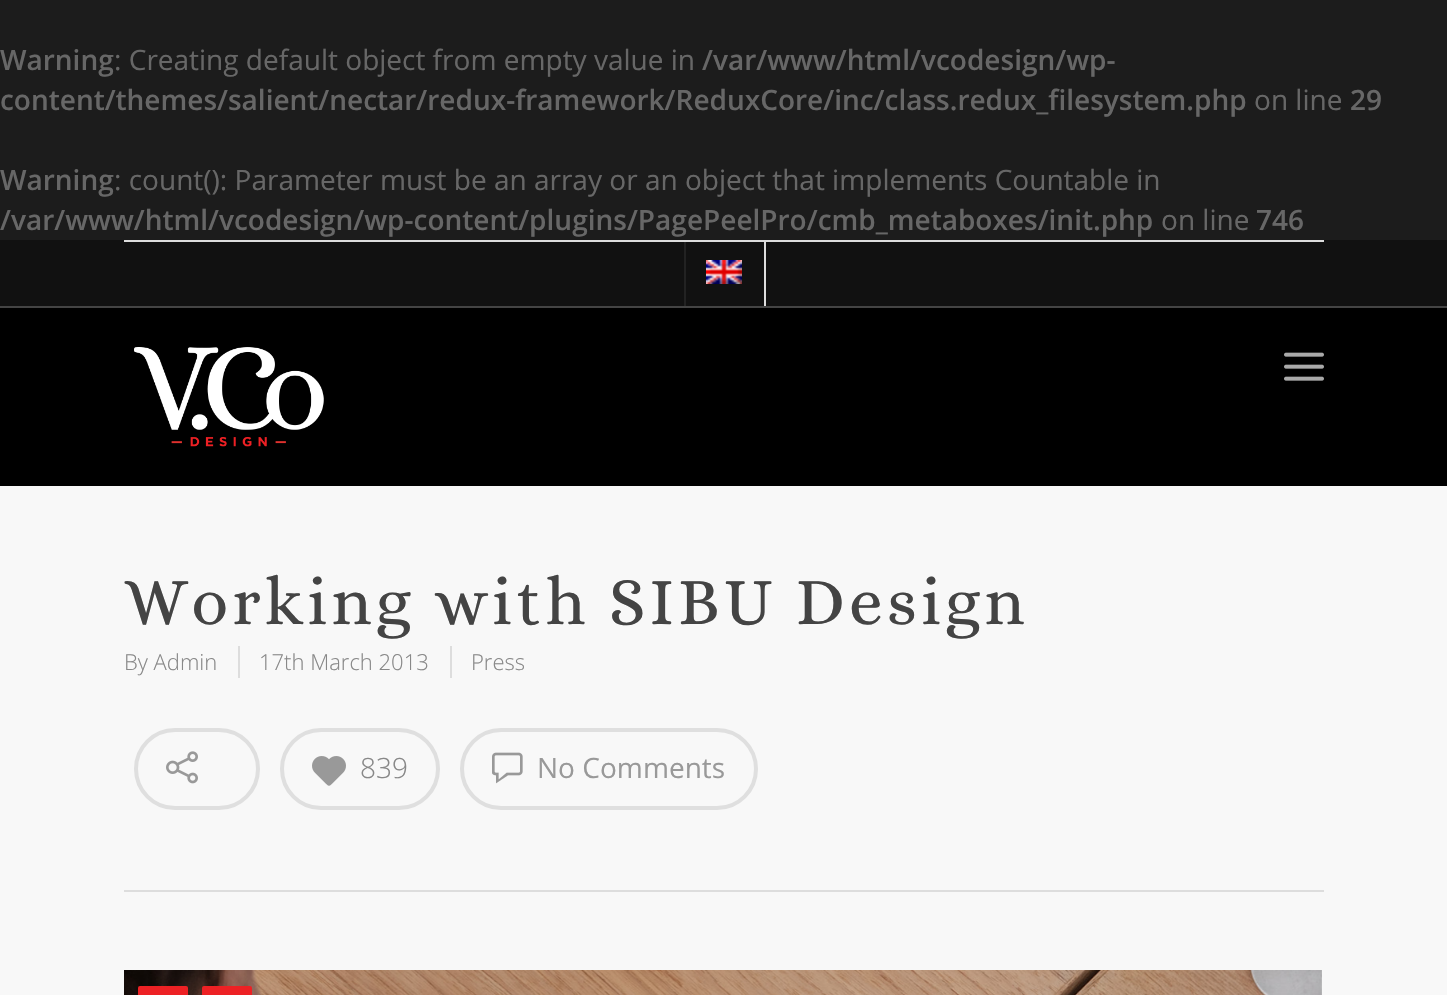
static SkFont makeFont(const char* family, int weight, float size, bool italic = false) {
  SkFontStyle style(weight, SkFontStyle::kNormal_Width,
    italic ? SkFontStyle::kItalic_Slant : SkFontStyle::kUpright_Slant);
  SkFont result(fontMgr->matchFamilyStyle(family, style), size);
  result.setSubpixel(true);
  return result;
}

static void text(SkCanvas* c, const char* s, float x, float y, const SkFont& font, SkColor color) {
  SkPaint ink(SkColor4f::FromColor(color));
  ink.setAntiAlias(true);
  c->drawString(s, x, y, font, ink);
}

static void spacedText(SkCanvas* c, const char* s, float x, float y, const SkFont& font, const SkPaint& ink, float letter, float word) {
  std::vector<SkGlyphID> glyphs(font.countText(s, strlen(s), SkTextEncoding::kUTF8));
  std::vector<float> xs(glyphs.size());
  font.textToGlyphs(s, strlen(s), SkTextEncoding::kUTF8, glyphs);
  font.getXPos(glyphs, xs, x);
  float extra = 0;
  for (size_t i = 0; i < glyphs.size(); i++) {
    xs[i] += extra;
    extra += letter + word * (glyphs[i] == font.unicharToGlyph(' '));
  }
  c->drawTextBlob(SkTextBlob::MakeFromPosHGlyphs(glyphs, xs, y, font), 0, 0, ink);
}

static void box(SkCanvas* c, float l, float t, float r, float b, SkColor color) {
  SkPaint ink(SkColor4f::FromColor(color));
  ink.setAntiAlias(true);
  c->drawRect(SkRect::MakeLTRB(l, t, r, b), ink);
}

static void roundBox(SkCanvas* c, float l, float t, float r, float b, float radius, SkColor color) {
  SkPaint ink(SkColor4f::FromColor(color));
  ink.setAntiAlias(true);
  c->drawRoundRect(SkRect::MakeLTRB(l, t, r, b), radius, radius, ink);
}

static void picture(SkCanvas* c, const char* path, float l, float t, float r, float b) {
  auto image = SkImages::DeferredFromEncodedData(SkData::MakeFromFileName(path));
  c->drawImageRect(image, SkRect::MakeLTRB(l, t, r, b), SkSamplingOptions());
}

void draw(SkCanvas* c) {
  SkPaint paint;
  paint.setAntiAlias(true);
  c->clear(0xff1c1c1c);
  SkFont face1 = makeFont("Open Sans", 600, 28);
  text(c, "Warning", 0, 70, face1, 0xff676767);
  SkFont face2 = makeFont("Open Sans", 400, 28);
  text(c, ": Creating default object from empty value in", 114, 70, face2, 0xff676767);
  text(c, "/var/www/html/vcodesign/wp-", 702, 70, face1, 0xff676767);
  text(c, "content/themes/salient/nectar/redux-framework/ReduxCore/inc/class.redux_filesystem.php", 0, 110, face1, 0xff676767);
  text(c, "on line", 1254, 110, face2, 0xff676767);
  text(c, "29", 1350, 110, face1, 0xff676767);
  text(c, "Warning", 0, 190, face1, 0xff676767);
  text(c, ": count(): Parameter must be an array or an object that implements Countable in", 114, 190, face2, 0xff676767);
  text(c, "/var/www/html/vcodesign/wp-content/plugins/PagePeelPro/cmb_metaboxes/init.php", 0, 230, face1, 0xff676767);
  text(c, "on line", 1161, 230, face2, 0xff676767);
  text(c, "746", 1256, 230, face1, 0xff676767);
  box(c, 0, 240, 1447, 306, 0xff111111);
  box(c, 0, 306, 1447, 308, 0xff444444);
  box(c, 124, 240, 1324, 242, 0xffdddddd);
  box(c, 764, 242, 766, 306, 0xffdddddd);
  box(c, 684, 242, 686, 306, 0xff222222);
  picture(c, "img_01.png", 706, 260, 742, 284);
  box(c, 0, 308, 1447, 486, 0xff000000);
  picture(c, "img_02.png", 134, 347, 324, 447);
  picture(c, "img_03.png", 1284, 352, 1324, 381);
  box(c, 0, 486, 1447, 995, 0xfff8f8f8);
  box(c, 124, 890, 1324, 892, 0xffdddddd);
  SkFont face3 = makeFont("Alice", 400, 67.6f);
  paint.setColor(0xff444444);
  spacedText(c, "Working with SIBU Design", 124, 624, face3, paint, 4, 0);
  SkFont face4 = makeFont("Open Sans", 300, 22);
  text(c, "By Admin", 124, 670, face4, 0xff888888);
  box(c, 238, 646, 240, 678, 0xffdddddd);
  text(c, "17th March 2013", 259, 670, face4, 0xff888888);
  box(c, 450, 646, 452, 678, 0xffdddddd);
  text(c, "Press", 471, 670, face4, 0xff888888);
  paint.setStyle(SkPaint::kStroke_Style);
  paint.setStrokeWidth(4);
  paint.setColor(0xffdfdfdf);
  c->drawRoundRect(SkRect::MakeLTRB(136, 730, 258, 808), 39, 39, paint);
  picture(c, "img_04.png", 166, 751, 198, 784);
  c->drawRoundRect(SkRect::MakeLTRB(282, 730, 438, 808), 39, 39, paint);
  picture(c, "img_05.png", 312, 756, 346, 786);
  SkFont face5 = makeFont("Open Sans", 300, 28);
  text(c, "839", 360, 778, face5, 0xff888888);
  c->drawRoundRect(SkRect::MakeLTRB(462, 730, 756, 808), 39, 39, paint);
  picture(c, "img_06.png", 492, 752, 523, 784);
  text(c, "No Comments", 537, 778, face2, 0xff999999);
  picture(c, "img_07.png", 124, 970, 1322, 995);
  roundBox(c, 138, 986, 188, 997, 2, 0xffed2124);
  roundBox(c, 202, 986, 252, 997, 2, 0xffed2124);
}
